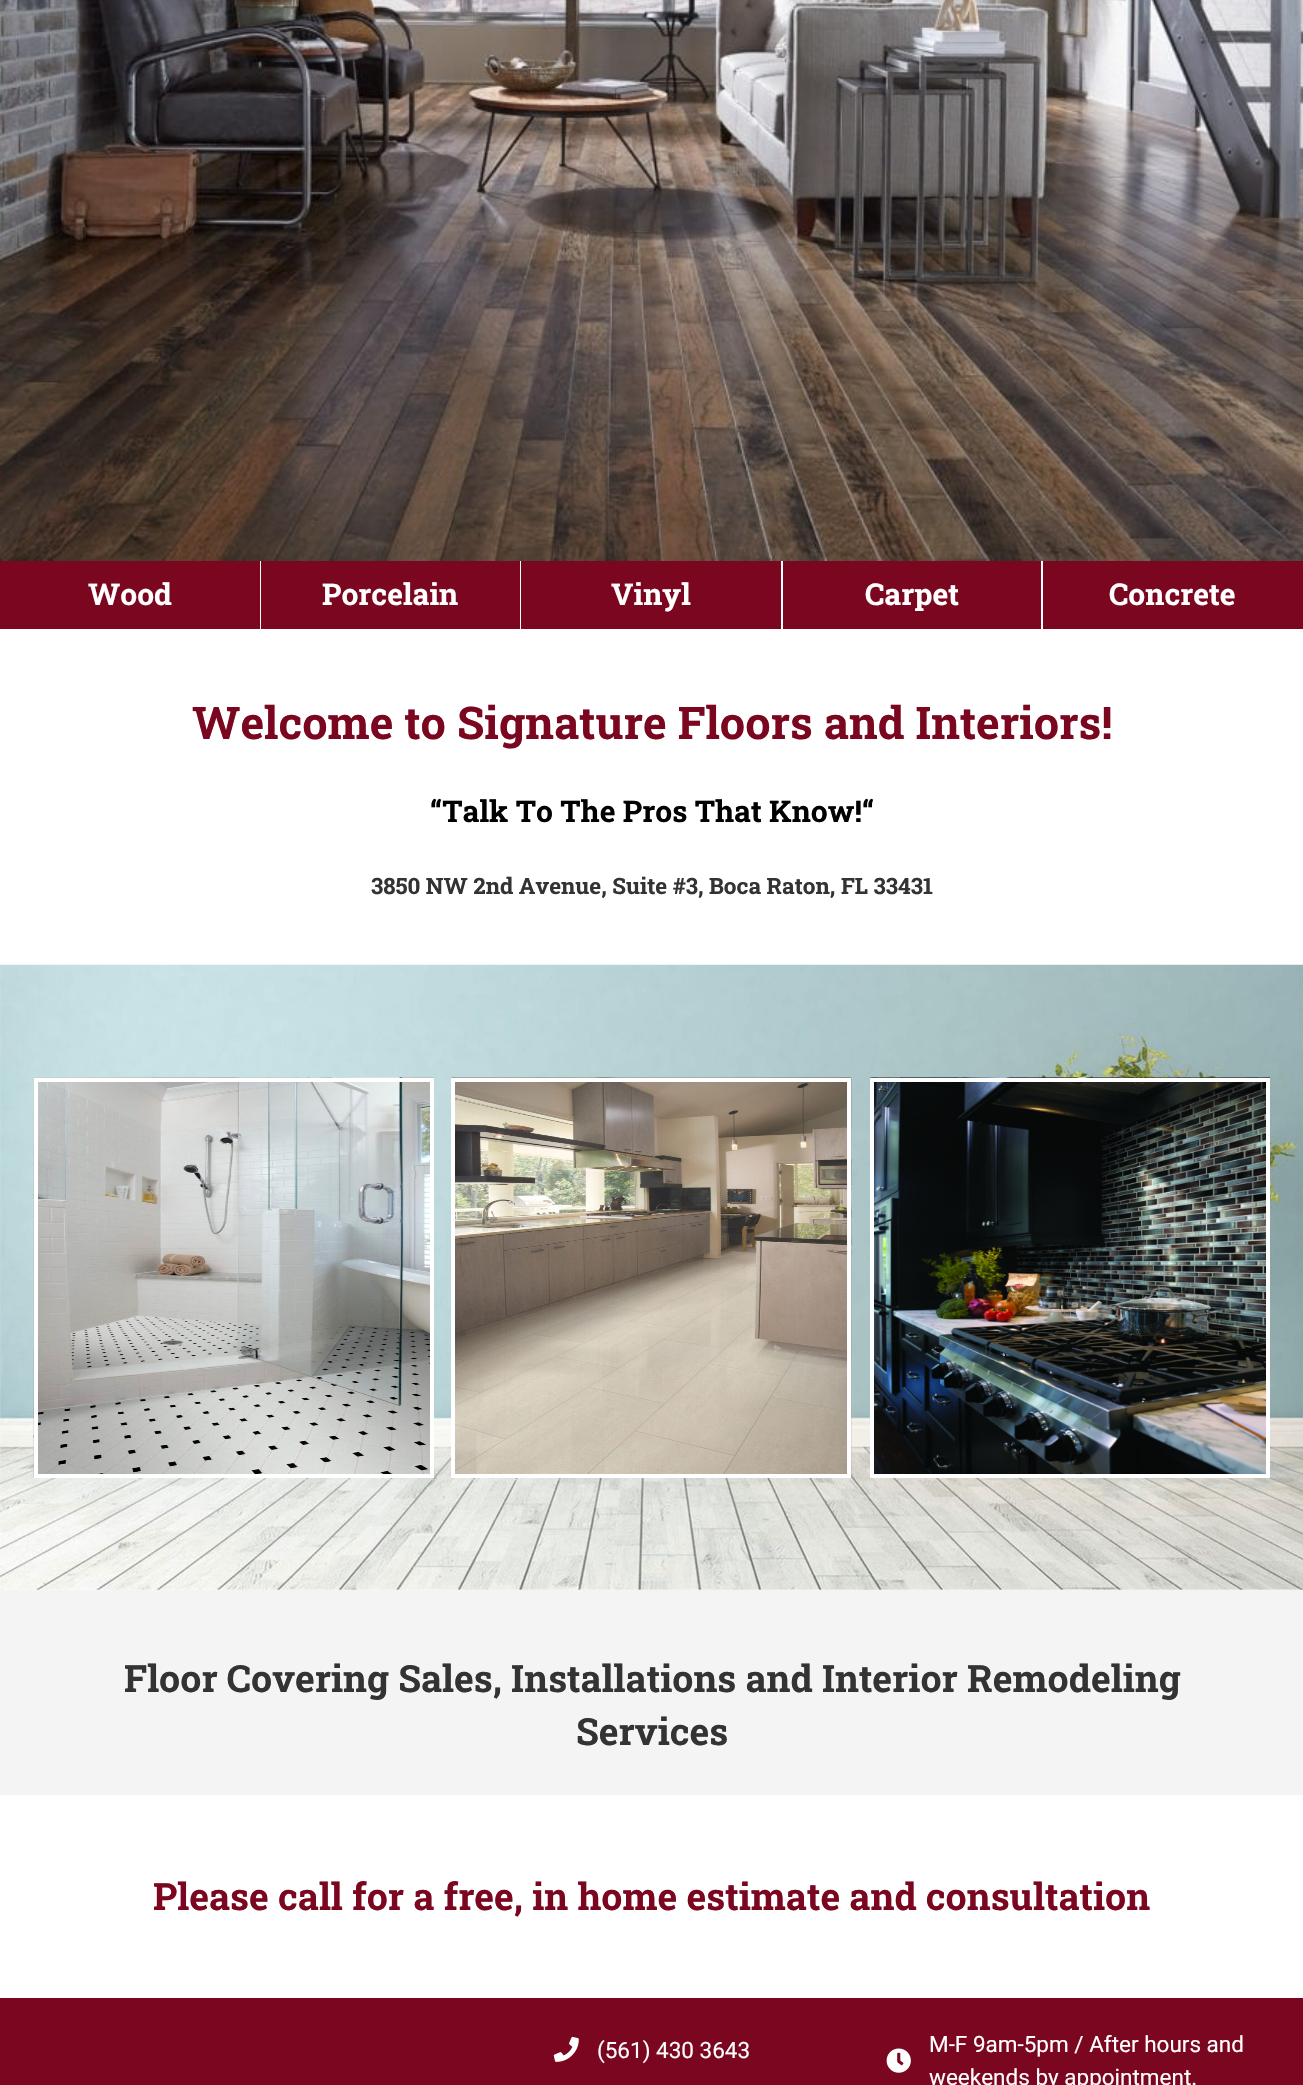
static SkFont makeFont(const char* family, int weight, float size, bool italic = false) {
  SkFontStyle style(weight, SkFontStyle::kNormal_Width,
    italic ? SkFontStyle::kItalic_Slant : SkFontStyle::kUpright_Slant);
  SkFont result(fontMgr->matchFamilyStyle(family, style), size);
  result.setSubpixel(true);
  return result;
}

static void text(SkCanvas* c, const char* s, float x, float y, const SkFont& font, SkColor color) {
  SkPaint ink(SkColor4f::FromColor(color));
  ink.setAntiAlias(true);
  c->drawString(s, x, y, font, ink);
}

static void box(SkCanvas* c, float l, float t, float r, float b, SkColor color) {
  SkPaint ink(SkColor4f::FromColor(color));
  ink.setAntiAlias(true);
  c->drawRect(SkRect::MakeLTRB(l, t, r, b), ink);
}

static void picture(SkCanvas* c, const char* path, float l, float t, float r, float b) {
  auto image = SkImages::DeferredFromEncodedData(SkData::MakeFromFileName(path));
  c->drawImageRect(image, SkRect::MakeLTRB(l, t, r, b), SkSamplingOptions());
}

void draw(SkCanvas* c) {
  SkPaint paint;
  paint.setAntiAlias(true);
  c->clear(0xffffffff);
  picture(c, "img_01.png", 0, 0, 1303, 561);
  box(c, 0, 561, 260, 629, 0xff7a061f);
  SkFont face1 = makeFont("Roboto Slab", 700, 30);
  text(c, "Wood", 88, 605, face1, 0xffffffff);
  box(c, 261, 561, 520, 629, 0xff7a061f);
  text(c, "Porcelain", 322, 605, face1, 0xffffffff);
  box(c, 521, 561, 781, 629, 0xff7a061f);
  text(c, "Vinyl", 611, 605, face1, 0xffffffff);
  box(c, 783, 561, 1041, 629, 0xff7a061f);
  text(c, "Carpet", 865, 605, face1, 0xffffffff);
  box(c, 1043, 561, 1303, 629, 0xff7a061f);
  text(c, "Concrete", 1109, 605, face1, 0xffffffff);
  SkFont face2 = makeFont("Roboto Slab", 700, 45);
  text(c, "Welcome to Signature Floors and Interiors!", 192, 739, face2, 0xff7a061f);
  text(c, "“Talk To The Pros That Know!“", 430, 822, face1, 0xff000000);
  SkFont face3 = makeFont("Roboto Slab", 700, 22.5f);
  text(c, "3850 NW 2nd Avenue, Suite #3, Boca Raton, FL 33431", 371, 894, face3, 0xff333333);
  picture(c, "img_02.png", 0, 964, 1303, 1590);
  picture(c, "img_03.png", 33, 1077, 434, 1477);
  paint.setStyle(SkPaint::kStroke_Style);
  paint.setStrokeWidth(4);
  paint.setColor(0xffffffff);
  c->drawRect(SkRect::MakeLTRB(36, 1080, 432, 1476), paint);
  picture(c, "img_04.png", 451, 1077, 852, 1477);
  c->drawRect(SkRect::MakeLTRB(453, 1080, 849, 1476), paint);
  picture(c, "img_05.png", 870, 1077, 1270, 1474);
  c->drawRect(SkRect::MakeLTRB(872, 1080, 1268, 1476), paint);
  box(c, 0, 1590, 1303, 1795, 0xfff4f4f4);
  SkFont face4 = makeFont("Roboto Slab", 700, 37.5f);
  text(c, "Floor Covering Sales, Installations and Interior Remodeling", 124, 1692, face4, 0xff333333);
  text(c, "Services", 576, 1745, face4, 0xff333333);
  text(c, "Please call for a free, in home estimate and consultation", 153, 1910, face4, 0xff7a061f);
  box(c, 0, 1998, 1303, 2085, 0xff7a061f);
  picture(c, "img_06.png", 553, 2036, 579, 2062);
  SkFont face5 = makeFont("Roboto", 400, 22.5f);
  text(c, "(561) 430 3643", 597, 2058, face5, 0xffffffff);
  picture(c, "img_07.png", 886, 2048, 911, 2073);
  text(c, "M-F 9am-5pm / After hours and", 929, 2052, face5, 0xffffffff);
  text(c, "weekends by appointment.", 929, 2085, face5, 0xffffffff);
}
